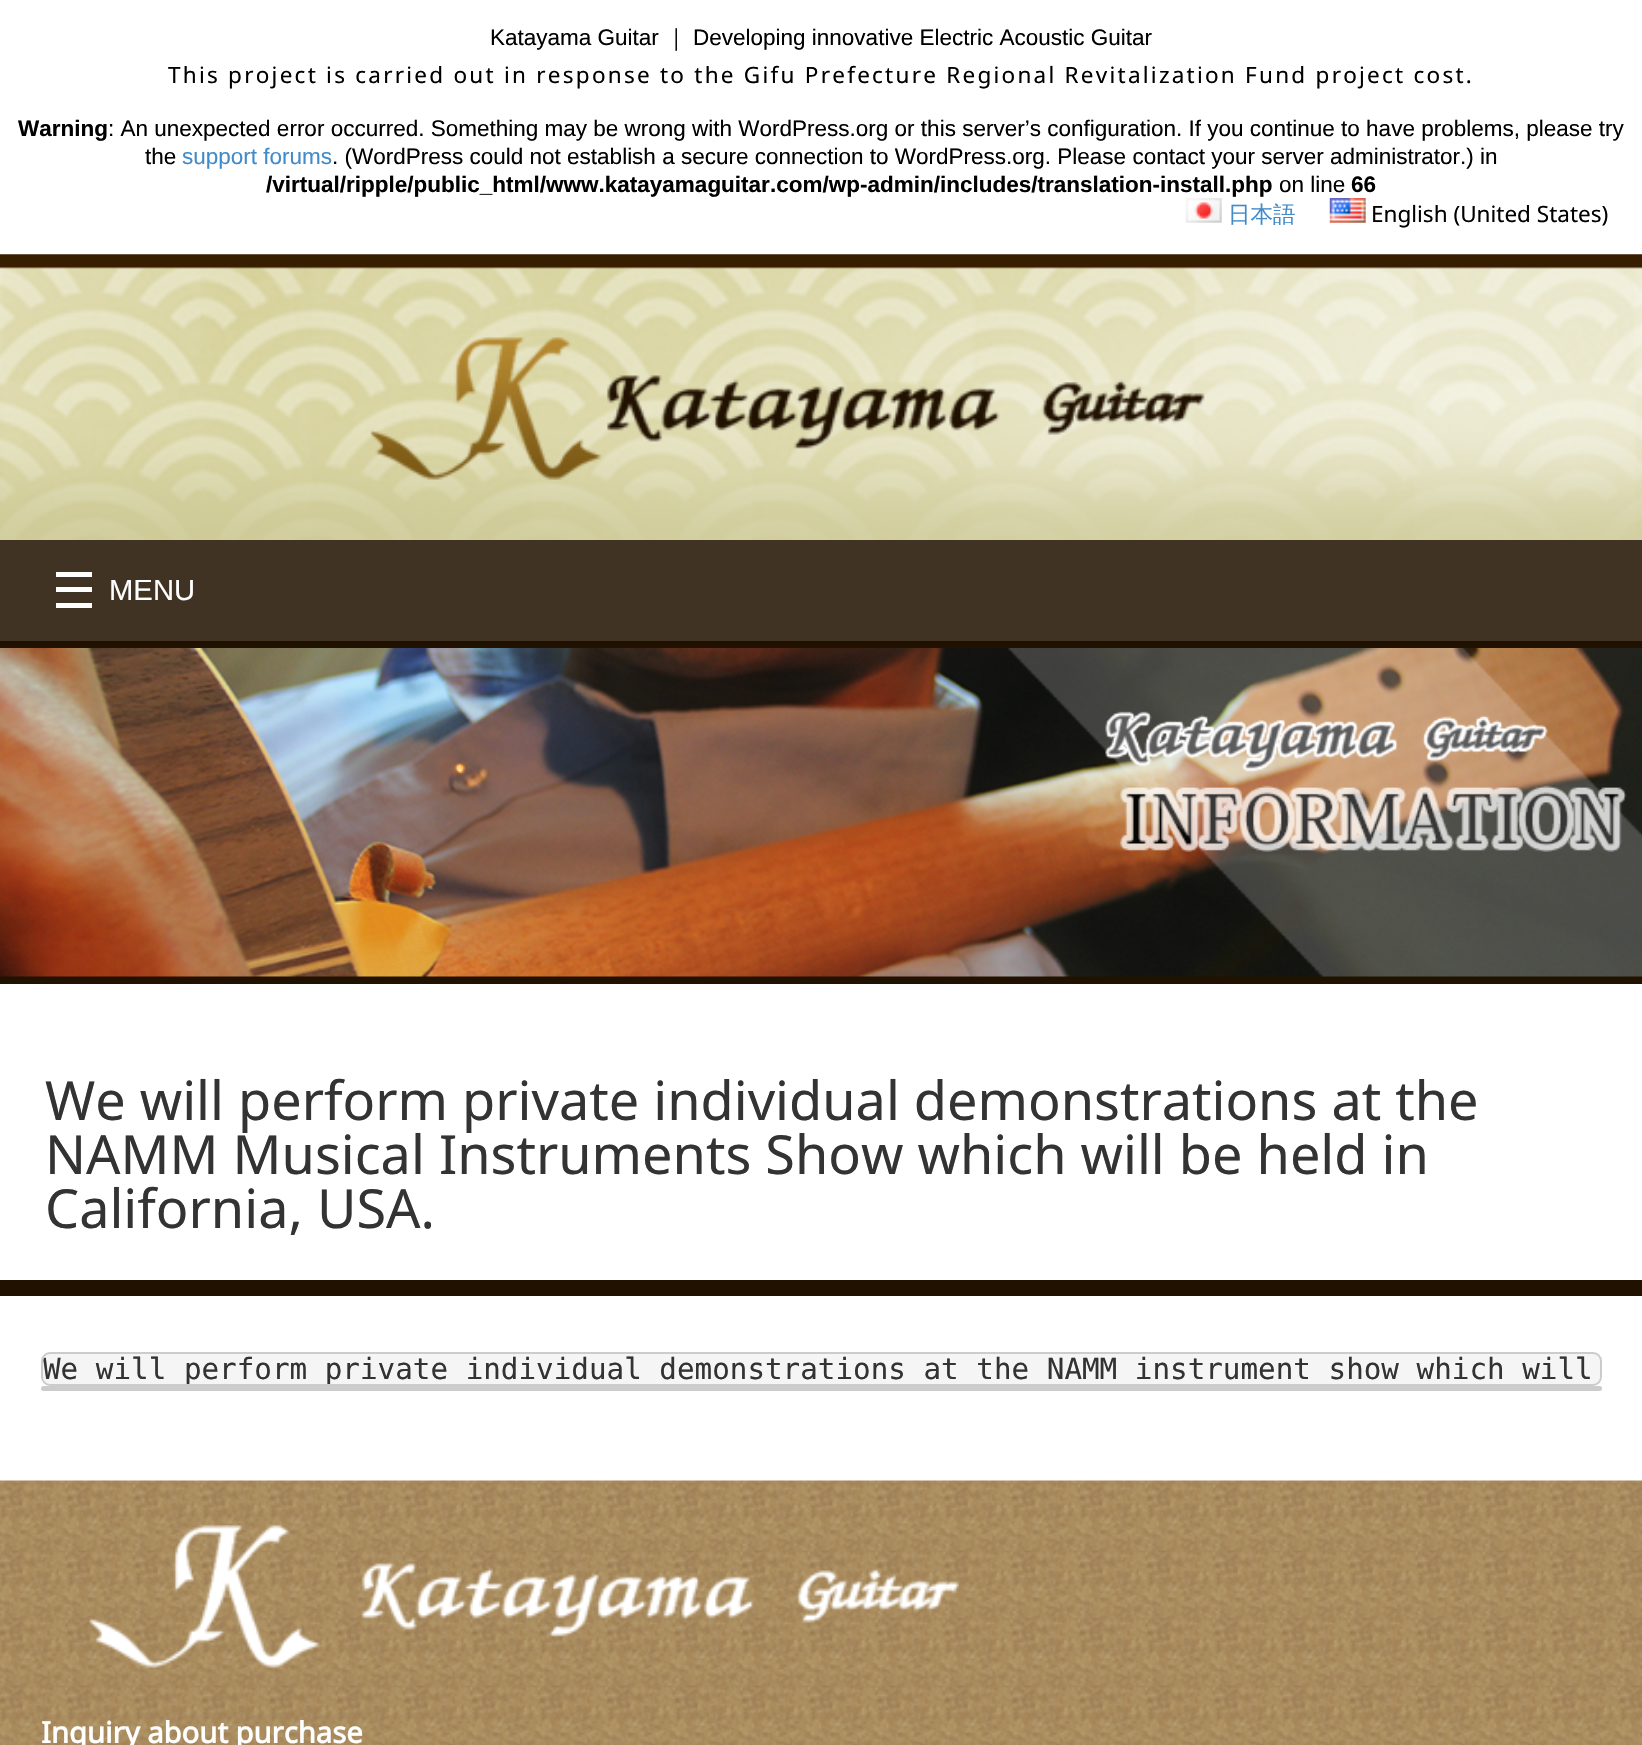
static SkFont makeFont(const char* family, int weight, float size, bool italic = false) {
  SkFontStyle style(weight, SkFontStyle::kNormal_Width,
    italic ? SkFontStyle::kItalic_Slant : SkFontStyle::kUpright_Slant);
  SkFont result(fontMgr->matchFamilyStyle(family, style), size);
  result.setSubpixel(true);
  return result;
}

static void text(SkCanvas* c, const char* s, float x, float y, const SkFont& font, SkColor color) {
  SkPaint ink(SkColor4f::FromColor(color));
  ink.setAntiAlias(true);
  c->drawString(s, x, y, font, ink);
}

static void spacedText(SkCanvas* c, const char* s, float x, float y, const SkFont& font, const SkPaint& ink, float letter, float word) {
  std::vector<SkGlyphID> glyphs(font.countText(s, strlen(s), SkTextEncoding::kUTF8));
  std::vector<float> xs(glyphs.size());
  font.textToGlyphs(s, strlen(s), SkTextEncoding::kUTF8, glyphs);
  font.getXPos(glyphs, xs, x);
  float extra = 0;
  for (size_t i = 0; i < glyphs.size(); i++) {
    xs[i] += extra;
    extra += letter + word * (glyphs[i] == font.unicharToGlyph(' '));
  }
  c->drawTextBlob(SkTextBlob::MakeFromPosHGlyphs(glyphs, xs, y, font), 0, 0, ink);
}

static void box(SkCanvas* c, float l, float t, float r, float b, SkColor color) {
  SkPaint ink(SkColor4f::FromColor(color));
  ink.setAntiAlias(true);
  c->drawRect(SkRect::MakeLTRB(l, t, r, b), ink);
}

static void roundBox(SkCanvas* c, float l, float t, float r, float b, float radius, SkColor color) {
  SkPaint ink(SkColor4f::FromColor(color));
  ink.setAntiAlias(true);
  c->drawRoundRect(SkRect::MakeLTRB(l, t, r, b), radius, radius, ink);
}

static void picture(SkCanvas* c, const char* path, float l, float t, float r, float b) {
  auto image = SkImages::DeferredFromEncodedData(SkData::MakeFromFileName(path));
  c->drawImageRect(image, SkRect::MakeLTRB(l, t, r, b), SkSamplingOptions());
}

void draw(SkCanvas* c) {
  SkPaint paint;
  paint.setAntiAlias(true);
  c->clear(0xffffffff);
  SkFont face1 = makeFont("Liberation Sans", 400, 22.5f);
  text(c, "Katayama Guitar", 490, 45, face1, 0xff000000);
  SkFont face2 = makeFont("WenQuanYi Zen Hei", 500, 22.5f);
  text(c, "｜", 665, 45, face2, 0xff000000);
  text(c, "Developing innovative Electric Acoustic Guitar", 693, 45, face1, 0xff000000);
  SkFont face3 = makeFont("Noto Sans", 400, 22.5f);
  paint.setColor(0xff000000);
  spacedText(c, "This project is carried out in response to the Gifu Prefecture Regional Revitalization Fund project cost.", 168, 83, face3, paint, 2.25f, 0);
  SkFont face4 = makeFont("Liberation Sans", 700, 22.5f);
  text(c, "Warning", 18, 136, face4, 0xff000000);
  text(c, ": An unexpected error occurred. Something may be wrong with WordPress.org or this server’s configuration. If you continue to have problems, please try", 108, 136, face1, 0xff000000);
  text(c, "the", 145, 164, face1, 0xff000000);
  text(c, "support forums", 182, 164, face1, 0xff428bca);
  text(c, ". (WordPress could not establish a secure connection to WordPress.org. Please contact your server administrator.) in", 332, 164, face1, 0xff000000);
  text(c, "/virtual/ripple/public_html/www.katayamaguitar.com/wp-admin/includes/translation-install.php", 266, 192, face4, 0xff000000);
  text(c, "on line", 1279, 192, face1, 0xff000000);
  text(c, "66", 1351, 192, face4, 0xff000000);
  picture(c, "img_01.png", 1185, 198, 1222, 223);
  text(c, "日本語", 1228, 222, face2, 0xff428bca);
  picture(c, "img_02.png", 1329, 198, 1366, 223);
  text(c, "English (United States)", 1371, 222, face3, 0xff000000);
  picture(c, "img_03.png", 0, 254, 1642, 540);
  picture(c, "img_04.png", 370, 337, 1205, 480);
  box(c, 0, 540, 1642, 641, 0xff403324);
  box(c, 56, 572, 92, 577, 0xffffffff);
  box(c, 56, 587, 92, 592, 0xffffffff);
  box(c, 56, 603, 92, 608, 0xffffffff);
  SkFont face5 = makeFont("Liberation Sans", 400, 29.25f);
  text(c, "MENU", 109, 600, face5, 0xffffffff);
  box(c, 0, 641, 1642, 984, 0xff201100);
  picture(c, "img_05.png", 0, 648, 1642, 977);
  box(c, 0, 1280, 1642, 1296, 0xff201100);
  SkFont face6 = makeFont("Noto Sans", 400, 54);
  text(c, "We will perform private individual demonstrations at the", 45, 1120, face6, 0xff333333);
  text(c, "NAMM Musical Instruments Show which will be held in", 45, 1174, face6, 0xff333333);
  text(c, "California, USA.", 45, 1228, face6, 0xff333333);
  paint.setColor(0xfff5f5f5);
  c->drawRoundRect(SkRect::MakeLTRB(42, 1353, 1601, 1385), 8, 8, paint);
  paint.setStyle(SkPaint::kStroke_Style);
  paint.setStrokeWidth(2);
  paint.setColor(0xffcccccc);
  c->drawRoundRect(SkRect::MakeLTRB(42, 1353, 1601, 1385), 8, 8, paint);
  c->save();
  c->clipPath(SkPathBuilder().moveTo(50, 1355).lineTo(1593, 1355).cubicTo(1597, 1355, 1600, 1358, 1600, 1362).lineTo(1600, 1377).cubicTo(1600, 1381, 1597, 1384, 1593, 1384).lineTo(50, 1384).cubicTo(46, 1384, 43, 1381, 43, 1377).lineTo(43, 1362).cubicTo(43, 1358, 46, 1355, 50, 1355).close().detach(), true);
  SkFont face7 = makeFont("DejaVu Sans Mono", 400, 29.25f);
  text(c, "We will perform private individual demonstrations at the NAMM instrument show which will", 43, 1379, face7, 0xff333333);
  c->restore();
  roundBox(c, 41, 1386, 1602, 1391, 2.5f, 0xffcccccc);
  picture(c, "img_06.png", 0, 1480, 1642, 1745);
  picture(c, "img_07.png", 89, 1525, 960, 1668);
  SkFont face8 = makeFont("Noto Sans", 700, 29.25f);
  text(c, "Inquiry about purchase", 41, 1743, face8, 0xffffffff);
}
